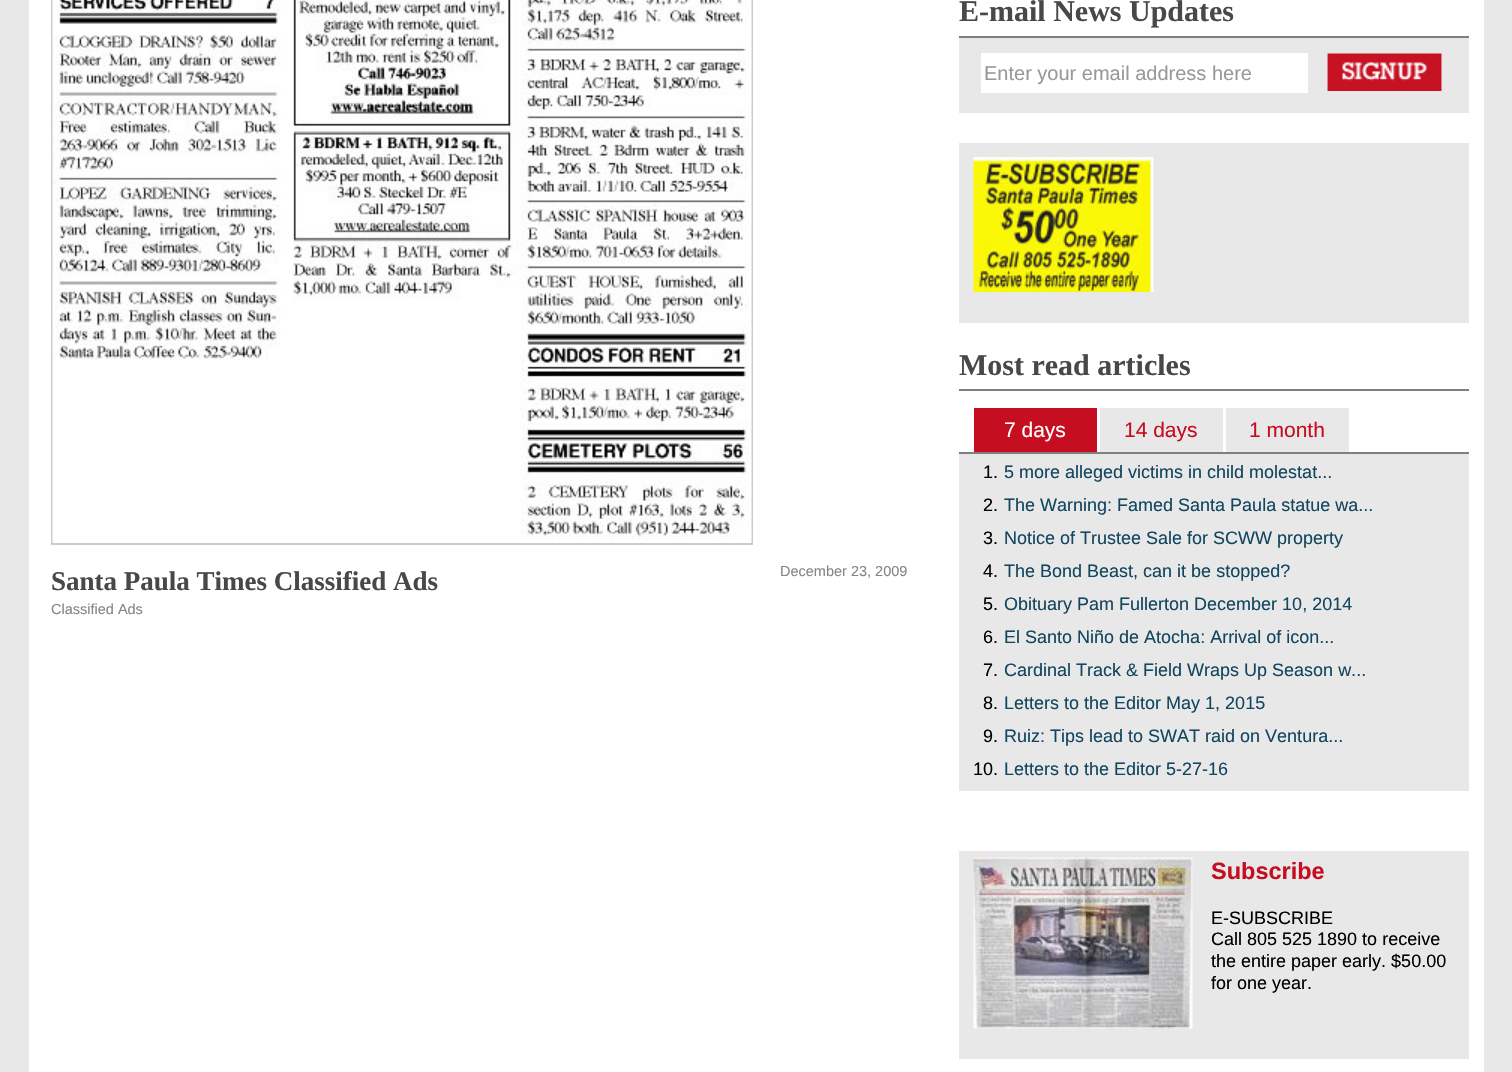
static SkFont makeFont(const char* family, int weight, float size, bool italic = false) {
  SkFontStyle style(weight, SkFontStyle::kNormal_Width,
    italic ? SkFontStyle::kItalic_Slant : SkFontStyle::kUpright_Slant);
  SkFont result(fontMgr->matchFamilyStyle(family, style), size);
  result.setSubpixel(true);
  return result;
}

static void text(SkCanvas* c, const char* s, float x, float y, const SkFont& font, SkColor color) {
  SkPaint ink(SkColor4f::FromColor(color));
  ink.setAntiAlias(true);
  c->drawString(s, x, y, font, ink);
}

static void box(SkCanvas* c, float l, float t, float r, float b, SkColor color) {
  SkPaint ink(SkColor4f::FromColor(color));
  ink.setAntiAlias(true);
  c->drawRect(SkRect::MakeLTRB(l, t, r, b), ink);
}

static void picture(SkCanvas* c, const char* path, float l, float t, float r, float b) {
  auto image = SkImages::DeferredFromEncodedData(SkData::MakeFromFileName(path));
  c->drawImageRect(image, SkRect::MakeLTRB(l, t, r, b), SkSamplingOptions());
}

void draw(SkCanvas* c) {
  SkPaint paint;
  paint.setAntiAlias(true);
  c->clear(0xffe8e8e8);
  box(c, 29, 0, 1484, 1072, 0xffffffff);
  paint.setStyle(SkPaint::kStroke_Style);
  paint.setStrokeWidth(2);
  paint.setColor(0xffcccccc);
  c->drawRect(SkRect::MakeLTRB(52, -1, 752, 544), paint);
  picture(c, "img_01.png", 52, 0, 752, 543);
  SkFont face1 = makeFont("Liberation Serif", 700, 27);
  text(c, "Santa Paula Times Classified Ads", 51, 590, face1, 0xff484848);
  SkFont face2 = makeFont("Liberation Sans", 400, 14.5f);
  text(c, "December 23, 2009", 780, 576, face2, 0xff858585);
  text(c, "Classified Ads", 51, 614, face2, 0xff858585);
  box(c, 959, 36, 1469, 38, 0xff7f7f7f);
  SkFont face3 = makeFont("Liberation Serif", 700, 30);
  text(c, "E-mail News Updates", 959, 21, face3, 0xff484848);
  box(c, 959, 38, 1469, 113, 0xffe8e8e8);
  box(c, 981, 53, 1308, 93, 0xffffffff);
  SkFont face4 = makeFont("Liberation Sans", 400, 20);
  text(c, "Enter your email address here", 984, 80, face4, 0xff999999);
  picture(c, "img_02.png", 1327, 53, 1442, 91);
  box(c, 959, 143, 1469, 323, 0xffe8e8e8);
  picture(c, "img_03.png", 973, 157, 1154, 292);
  box(c, 959, 389, 1469, 391, 0xff7f7f7f);
  text(c, "Most read articles", 959, 375, face3, 0xff484848);
  box(c, 974, 408, 1097, 452, 0xffc50e1f);
  SkFont face5 = makeFont("Liberation Sans", 400, 21);
  text(c, "7 days", 1004, 437, face5, 0xffffffff);
  box(c, 1100, 408, 1223, 452, 0xffe8e8e8);
  text(c, "14 days", 1124, 437, face5, 0xffc50e1f);
  box(c, 1226, 408, 1349, 452, 0xffe8e8e8);
  text(c, "1 month", 1249, 437, face5, 0xffc50e1f);
  box(c, 959, 454, 1469, 791, 0xffe8e8e8);
  box(c, 959, 452, 1469, 454, 0xff7f7f7f);
  SkFont face6 = makeFont("Liberation Sans", 400, 18);
  text(c, "1.", 983, 478, face6, 0xff000000);
  text(c, "5 more alleged victims in child molestat...", 1004, 478, face6, 0xff13465f);
  text(c, "2.", 983, 511, face6, 0xff000000);
  text(c, "The Warning: Famed Santa Paula statue wa...", 1004, 511, face6, 0xff13465f);
  text(c, "3.", 983, 544, face6, 0xff000000);
  text(c, "Notice of Trustee Sale for SCWW property", 1004, 544, face6, 0xff13465f);
  text(c, "4.", 983, 577, face6, 0xff000000);
  text(c, "The Bond Beast, can it be stopped?", 1004, 577, face6, 0xff13465f);
  text(c, "5.", 983, 610, face6, 0xff000000);
  text(c, "Obituary Pam Fullerton December 10, 2014", 1004, 610, face6, 0xff13465f);
  text(c, "6.", 983, 643, face6, 0xff000000);
  text(c, "El Santo Niño de Atocha: Arrival of icon...", 1004, 643, face6, 0xff13465f);
  text(c, "7.", 983, 676, face6, 0xff000000);
  text(c, "Cardinal Track & Field Wraps Up Season w...", 1004, 676, face6, 0xff13465f);
  text(c, "8.", 983, 709, face6, 0xff000000);
  text(c, "Letters to the Editor May 1, 2015", 1004, 709, face6, 0xff13465f);
  text(c, "9.", 983, 742, face6, 0xff000000);
  text(c, "Ruiz: Tips lead to SWAT raid on Ventura...", 1004, 742, face6, 0xff13465f);
  text(c, "10.", 973, 775, face6, 0xff000000);
  text(c, "Letters to the Editor 5-27-16", 1004, 775, face6, 0xff13465f);
  box(c, 959, 851, 1469, 1059, 0xffe8e8e8);
  picture(c, "img_04.png", 973, 857, 1193, 1029);
  SkFont face7 = makeFont("Liberation Sans", 700, 23.5f);
  text(c, "Subscribe", 1211, 879, face7, 0xffc50e1f);
  text(c, "E-SUBSCRIBE", 1211, 924, face6, 0xff000000);
  text(c, "Call 805 525 1890 to receive", 1211, 945, face6, 0xff000000);
  text(c, "the entire paper early. $50.00", 1211, 967, face6, 0xff000000);
  text(c, "for one year.", 1211, 989, face6, 0xff000000);
}
